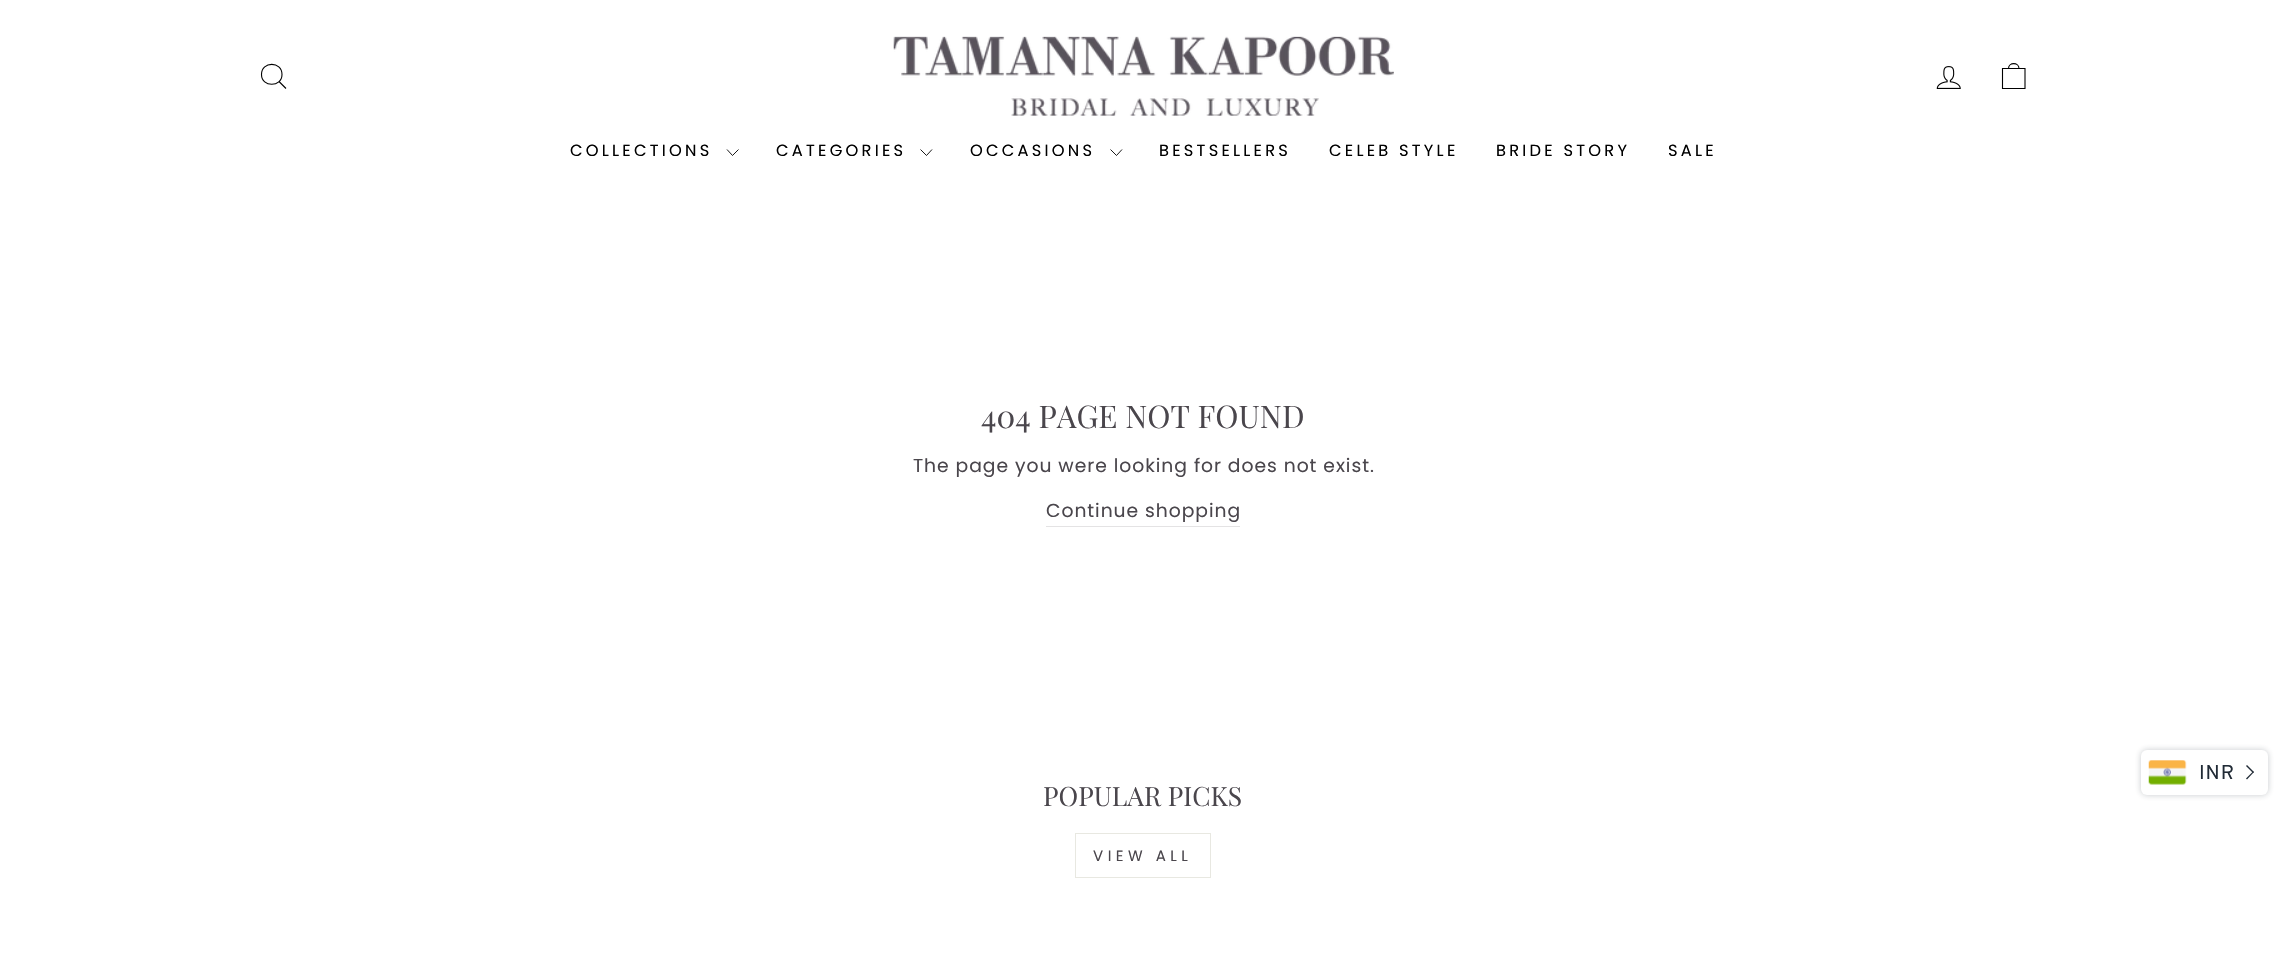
static SkFont makeFont(const char* family, int weight, float size, bool italic = false) {
  SkFontStyle style(weight, SkFontStyle::kNormal_Width,
    italic ? SkFontStyle::kItalic_Slant : SkFontStyle::kUpright_Slant);
  SkFont result(fontMgr->matchFamilyStyle(family, style), size);
  result.setSubpixel(true);
  return result;
}

static void text(SkCanvas* c, const char* s, float x, float y, const SkFont& font, SkColor color) {
  SkPaint ink(SkColor4f::FromColor(color));
  ink.setAntiAlias(true);
  c->drawString(s, x, y, font, ink);
}

static void spacedText(SkCanvas* c, const char* s, float x, float y, const SkFont& font, const SkPaint& ink, float letter, float word) {
  std::vector<SkGlyphID> glyphs(font.countText(s, strlen(s), SkTextEncoding::kUTF8));
  std::vector<float> xs(glyphs.size());
  font.textToGlyphs(s, strlen(s), SkTextEncoding::kUTF8, glyphs);
  font.getXPos(glyphs, xs, x);
  float extra = 0;
  for (size_t i = 0; i < glyphs.size(); i++) {
    xs[i] += extra;
    extra += letter + word * (glyphs[i] == font.unicharToGlyph(' '));
  }
  c->drawTextBlob(SkTextBlob::MakeFromPosHGlyphs(glyphs, xs, y, font), 0, 0, ink);
}

static void box(SkCanvas* c, float l, float t, float r, float b, SkColor color) {
  SkPaint ink(SkColor4f::FromColor(color));
  ink.setAntiAlias(true);
  c->drawRect(SkRect::MakeLTRB(l, t, r, b), ink);
}

static void roundBox(SkCanvas* c, float l, float t, float r, float b, float radius, SkColor color) {
  SkPaint ink(SkColor4f::FromColor(color));
  ink.setAntiAlias(true);
  c->drawRoundRect(SkRect::MakeLTRB(l, t, r, b), radius, radius, ink);
}

static void picture(SkCanvas* c, const char* path, float l, float t, float r, float b) {
  auto image = SkImages::DeferredFromEncodedData(SkData::MakeFromFileName(path));
  c->drawImageRect(image, SkRect::MakeLTRB(l, t, r, b), SkSamplingOptions());
}

void draw(SkCanvas* c) {
  SkPaint paint;
  paint.setAntiAlias(true);
  c->clear(0xffffffff);
  paint.setStyle(SkPaint::kStroke_Style);
  paint.setStrokeWidth(1.1f);
  paint.setColor(0xff000000);
  c->drawPath(SkPathBuilder().moveTo(282, 74.5f).cubicTo(282, 87.5f, 261.5f, 87.5f, 261.5f, 74.5f).cubicTo(261.5f, 61, 282, 61, 282, 74.5f).close().moveTo(286, 88.5f).lineTo(279, 81.5f).detach(), paint);
  picture(c, "img_01.png", 893, 36, 1394, 116);
  picture(c, "img_02.png", 1936, 66, 1961, 89);
  c->drawPath(SkPathBuilder().moveTo(2002.5f, 68.5f).lineTo(2025, 68.5f).lineTo(2025, 88.5f).lineTo(2002.5f, 88.5f).close().moveTo(2008.5f, 68.5f).cubicTo(2008.5f, 62, 2019, 62, 2019, 68.5f).detach(), paint);
  SkFont face1 = makeFont("Poppins", 400, 16.25f);
  paint.setStyle(SkPaint::kFill_Style);
  spacedText(c, "COLLECTIONS", 570, 156, face1, paint, 3.25f, 0);
  paint.setStyle(SkPaint::kStroke_Style);
  paint.setStrokeWidth(0.9f);
  c->drawPath(SkPathBuilder().moveTo(727, 149.5f).lineTo(732.5f, 155.5f).lineTo(738.5f, 149.5f).detach(), paint);
  paint.setStyle(SkPaint::kFill_Style);
  spacedText(c, "CATEGORIES", 776, 156, face1, paint, 3.25f, 0);
  paint.setStyle(SkPaint::kStroke_Style);
  c->drawPath(SkPathBuilder().moveTo(920.5f, 149.5f).lineTo(926.5f, 155.5f).lineTo(932, 149.5f).detach(), paint);
  paint.setStyle(SkPaint::kFill_Style);
  spacedText(c, "OCCASIONS", 970, 156, face1, paint, 3.25f, 0);
  paint.setStyle(SkPaint::kStroke_Style);
  c->drawPath(SkPathBuilder().moveTo(1110.5f, 149.5f).lineTo(1116.5f, 155.5f).lineTo(1122, 149.5f).detach(), paint);
  paint.setStyle(SkPaint::kFill_Style);
  spacedText(c, "BESTSELLERS", 1159, 156, face1, paint, 3.25f, 0);
  spacedText(c, "CELEB STYLE", 1329, 156, face1, paint, 3.25f, 0);
  spacedText(c, "BRIDE STORY", 1496, 156, face1, paint, 3.25f, 0);
  spacedText(c, "SALE", 1668, 156, face1, paint, 3.25f, 0);
  SkFont face2 = makeFont("Playfair Display", 400, 31.25f);
  text(c, "404 PAGE NOT FOUND", 981, 428, face2, 0xff4a464c);
  SkFont face3 = makeFont("Poppins", 400, 18.75f);
  paint.setColor(0xff4a464c);
  spacedText(c, "The page you were looking for does not exist.", 913, 472, face3, paint, 0.95f, 0);
  box(c, 1046, 526, 1240, 527, 0xffe4e3e4);
  spacedText(c, "Continue shopping", 1046, 517, face3, paint, 0.95f, 0);
  SkFont face4 = makeFont("Playfair Display", 400, 26.5f);
  text(c, "POPULAR PICKS", 1043, 806, face4, 0xff4a464c);
  paint.setStyle(SkPaint::kStroke_Style);
  paint.setStrokeWidth(1);
  paint.setColor(0xffe8e8e1);
  c->drawRect(SkRect::MakeLTRB(1075.5f, 833.5f, 1210.5f, 877.5f), paint);
  SkFont face5 = makeFont("Poppins", 400, 15);
  paint.setStyle(SkPaint::kFill_Style);
  paint.setColor(0xff4a464c);
  spacedText(c, "VIEW ALL", 1093, 861, face5, paint, 4.5f, 0);
  paint.setColor(0x40212b36);
  paint.setMaskFilter(SkMaskFilter::MakeBlur(kNormal_SkBlurStyle, 3));
  c->drawRoundRect(SkRect::MakeLTRB(2141, 750, 2268, 795), 6, 6, paint);
  paint.setMaskFilter(nullptr);
  roundBox(c, 2141, 750, 2268, 795, 6, 0xffffffff);
  picture(c, "img_03.png", 2148, 760, 2187, 785);
  SkFont face6 = makeFont("Overpass", 400, 20);
  paint.setColor(0xff212b36);
  spacedText(c, "INR", 2199, 779, face6, paint, 0.95f, 0);
  c->drawPath(SkPathBuilder().moveTo(2246, 766).lineTo(2247, 765).lineTo(2254, 772).lineTo(2253, 773).close().detach(), paint);
  c->drawPath(SkPathBuilder().moveTo(2246, 778.5f).lineTo(2253, 771.5f).lineTo(2254, 772).lineTo(2247, 779.5f).close().detach(), paint);
}
